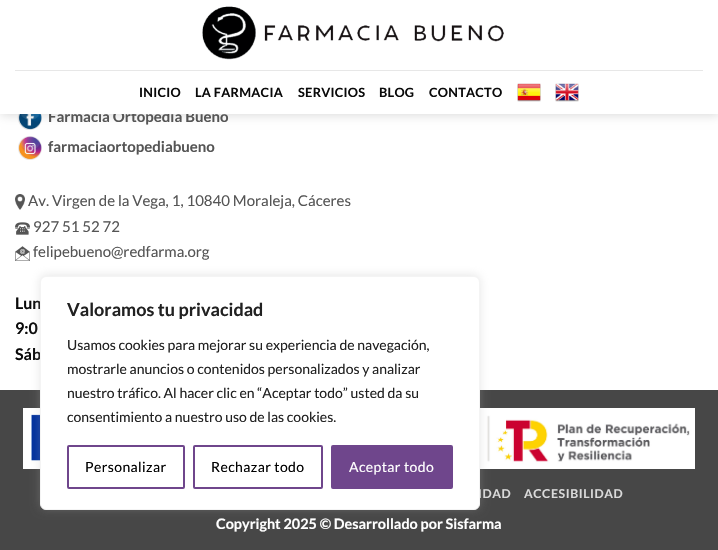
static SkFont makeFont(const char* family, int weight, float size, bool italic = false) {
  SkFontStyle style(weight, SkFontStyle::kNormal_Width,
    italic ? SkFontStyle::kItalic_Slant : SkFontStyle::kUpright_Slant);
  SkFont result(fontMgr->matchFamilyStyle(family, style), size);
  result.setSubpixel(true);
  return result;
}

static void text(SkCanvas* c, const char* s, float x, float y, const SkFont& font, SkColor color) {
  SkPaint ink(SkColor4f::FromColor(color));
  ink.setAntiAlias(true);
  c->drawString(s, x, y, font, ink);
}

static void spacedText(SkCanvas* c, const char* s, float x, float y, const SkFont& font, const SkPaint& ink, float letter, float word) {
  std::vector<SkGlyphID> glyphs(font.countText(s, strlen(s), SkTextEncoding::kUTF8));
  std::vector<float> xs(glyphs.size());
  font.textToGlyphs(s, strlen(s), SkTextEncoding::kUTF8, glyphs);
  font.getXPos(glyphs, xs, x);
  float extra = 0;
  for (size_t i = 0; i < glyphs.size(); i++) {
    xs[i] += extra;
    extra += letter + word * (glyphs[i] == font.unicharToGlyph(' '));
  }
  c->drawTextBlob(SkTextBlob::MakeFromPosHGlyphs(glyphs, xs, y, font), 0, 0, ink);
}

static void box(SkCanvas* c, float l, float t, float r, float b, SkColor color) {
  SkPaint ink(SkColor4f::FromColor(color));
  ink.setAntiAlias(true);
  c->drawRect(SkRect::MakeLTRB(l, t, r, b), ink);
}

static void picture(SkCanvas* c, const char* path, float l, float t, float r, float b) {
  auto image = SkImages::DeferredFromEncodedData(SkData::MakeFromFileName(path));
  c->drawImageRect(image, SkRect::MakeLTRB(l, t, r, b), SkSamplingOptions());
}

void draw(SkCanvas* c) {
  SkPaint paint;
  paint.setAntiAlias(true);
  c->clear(0xffffffff);
  picture(c, "img_04.png", 17, 114, 42, 130);
  paint.setColor(0x26000000);
  paint.setMaskFilter(SkMaskFilter::MakeBlur(kNormal_SkBlurStyle, 5));
  c->drawRect(SkRect::MakeLTRB(1, 1, 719, 115), paint);
  paint.setMaskFilter(nullptr);
  SkFont face1 = makeFont("Lato", 700, 15);
  text(c, "Farmacia Ortopedia Bueno", 48, 122, face1, 0xff555555);
  box(c, 0, 0, 718, 114, 0xffffffff);
  picture(c, "img_01.png", 202, 6, 504, 60);
  box(c, 15, 70, 703, 71, 0xffe7e7e7);
  SkFont face2 = makeFont("Lato", 700, 12.75f);
  paint.setColor(0xff0a0a0a);
  spacedText(c, "INICIO", 139, 97, face2, paint, 0.25f, 0);
  spacedText(c, "LA FARMACIA", 195, 97, face2, paint, 0.25f, 0);
  spacedText(c, "SERVICIOS", 298, 97, face2, paint, 0.25f, 0);
  spacedText(c, "BLOG", 379, 97, face2, paint, 0.25f, 0);
  spacedText(c, "CONTACTO", 429, 97, face2, paint, 0.25f, 0);
  picture(c, "img_02.png", 517, 83, 541, 102);
  picture(c, "img_03.png", 555, 83, 579, 102);
  picture(c, "img_05.png", 18, 136, 42, 160);
  text(c, "farmaciaortopediabueno", 48, 152, face1, 0xff555555);
  picture(c, "img_06.png", 15, 194, 25, 210);
  SkFont face3 = makeFont("Lato", 400, 15);
  text(c, "Av. Virgen de la Vega, 1, 10840 Moraleja, Cáceres", 28, 206, face3, 0xff555555);
  picture(c, "img_07.png", 15, 222, 30, 235);
  text(c, "927 51 52 72", 33, 232, face3, 0xff555555);
  picture(c, "img_08.png", 15, 246, 30, 261);
  text(c, "felipebueno@redfarma.org", 33, 257, face3, 0xff555555);
  SkFont face4 = makeFont("Lato", 700, 16);
  text(c, "Lun", 15, 309, face4, 0xff0a0a0a);
  text(c, "9:0", 15, 334, face4, 0xff0a0a0a);
  text(c, "Sáb", 15, 360, face4, 0xff0a0a0a);
  box(c, 0, 390, 718, 550, 0xff474747);
  picture(c, "img_09.png", 23, 408, 40, 469);
  picture(c, "img_10.png", 480, 408, 695, 469);
  SkFont face5 = makeFont("Lato", 700, 12.25f);
  paint.setColor(0xffdadada);
  spacedText(c, "IDAD", 478, 498, face5, paint, 0.6f, 0);
  spacedText(c, "ACCESIBILIDAD", 524, 498, face5, paint, 0.6f, 0);
  SkFont face6 = makeFont("Lato", 700, 14.4f);
  text(c, "Copyright 2025 © Desarrollado por Sisfarma", 216, 529, face6, 0xffffffff);
  paint.setColor(0x4dacabab);
  paint.setMaskFilter(SkMaskFilter::MakeBlur(kNormal_SkBlurStyle, 5));
  c->drawRoundRect(SkRect::MakeLTRB(40, 275, 480, 509), 6, 6, paint);
  paint.setMaskFilter(nullptr);
  paint.setColor(0xffffffff);
  c->drawRoundRect(SkRect::MakeLTRB(40.5f, 276.5f, 479.5f, 509.5f), 5.5f, 5.5f, paint);
  paint.setStyle(SkPaint::kStroke_Style);
  paint.setStrokeWidth(1);
  paint.setColor(0xfff4f4f4);
  c->drawRoundRect(SkRect::MakeLTRB(40.5f, 276.5f, 479.5f, 509.5f), 5.5f, 5.5f, paint);
  SkFont face7 = makeFont("Lato", 700, 18);
  text(c, "Valoramos tu privacidad", 67, 316, face7, 0xff212121);
  SkFont face8 = makeFont("Lato", 400, 14);
  text(c, "Usamos cookies para mejorar su experiencia de navegación,", 67, 350, face8, 0xff212121);
  text(c, "mostrarle anuncios o contenidos personalizados y analizar", 67, 374, face8, 0xff212121);
  text(c, "nuestro tráfico. Al hacer clic en “Aceptar todo” usted da su", 67, 398, face8, 0xff212121);
  text(c, "consentimiento a nuestro uso de las cookies.", 67, 422, face8, 0xff212121);
  paint.setStrokeWidth(2);
  paint.setColor(0xff6f468c);
  c->drawRoundRect(SkRect::MakeLTRB(68, 446, 184, 488), 1, 1, paint);
  paint.setStyle(SkPaint::kFill_Style);
  paint.setColor(0xff000000);
  spacedText(c, "Personalizar", 85, 472, face8, paint, 0.4f, 0);
  paint.setStyle(SkPaint::kStroke_Style);
  paint.setColor(0xff6f468c);
  c->drawRoundRect(SkRect::MakeLTRB(194, 446, 322, 488), 1, 1, paint);
  paint.setStyle(SkPaint::kFill_Style);
  paint.setColor(0xff000000);
  spacedText(c, "Rechazar todo", 211, 472, face8, paint, 0.4f, 0);
  paint.setColor(0xff6f468c);
  c->drawRoundRect(SkRect::MakeLTRB(332, 446, 452, 488), 1, 1, paint);
  paint.setStyle(SkPaint::kStroke_Style);
  c->drawRoundRect(SkRect::MakeLTRB(332, 446, 452, 488), 1, 1, paint);
  paint.setStyle(SkPaint::kFill_Style);
  paint.setColor(0xffffffff);
  spacedText(c, "Aceptar todo", 349, 472, face8, paint, 0.4f, 0);
}
